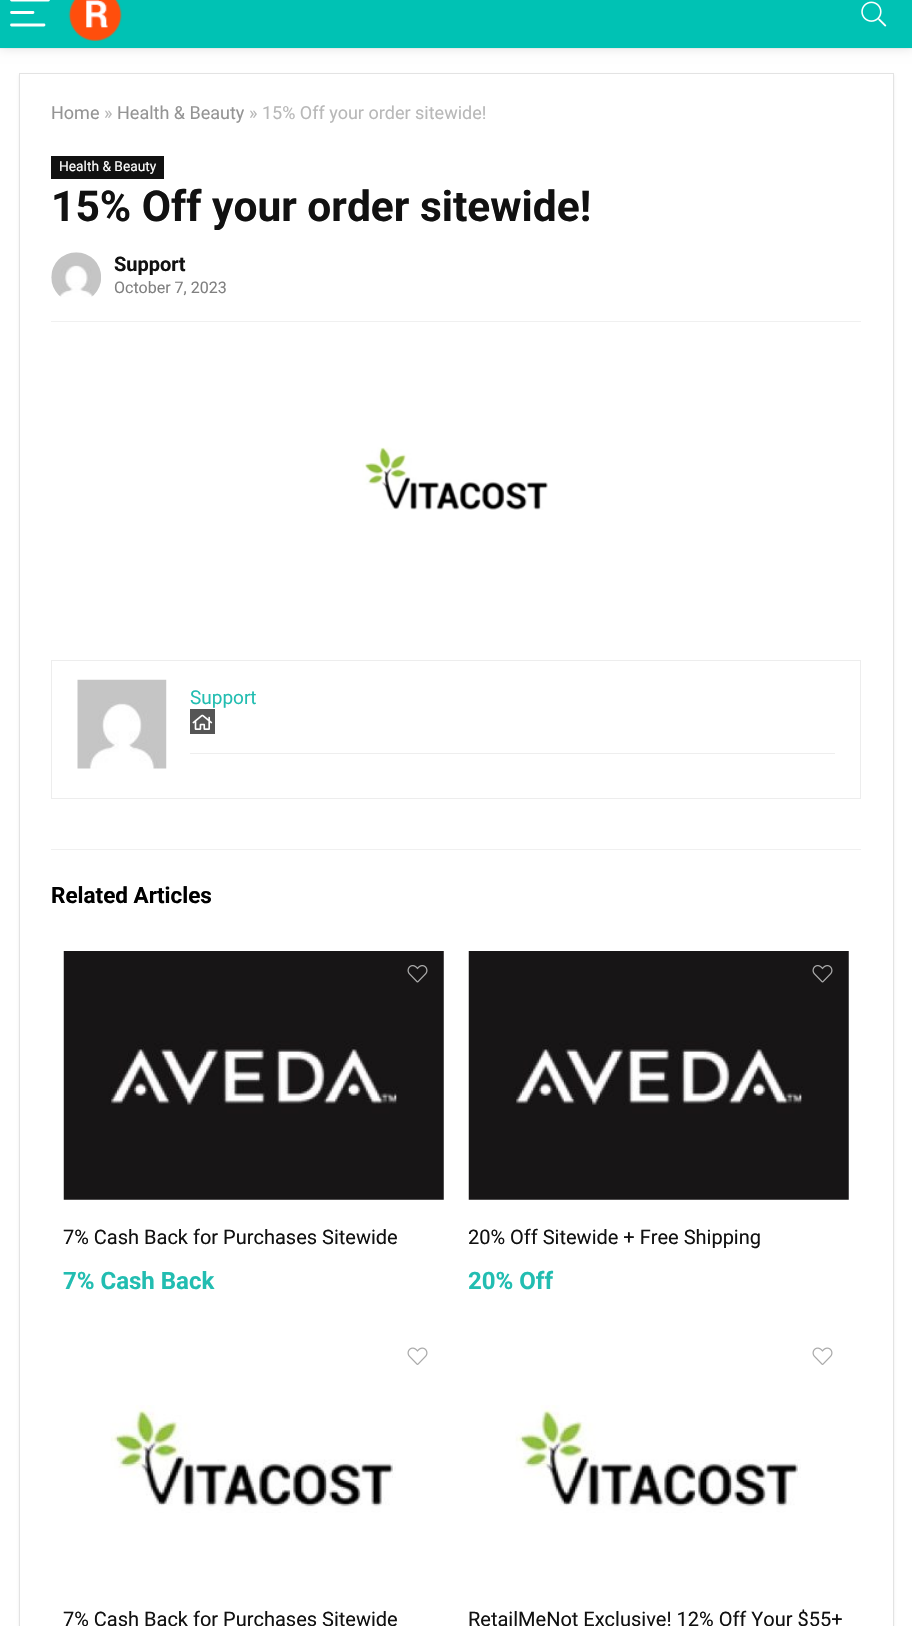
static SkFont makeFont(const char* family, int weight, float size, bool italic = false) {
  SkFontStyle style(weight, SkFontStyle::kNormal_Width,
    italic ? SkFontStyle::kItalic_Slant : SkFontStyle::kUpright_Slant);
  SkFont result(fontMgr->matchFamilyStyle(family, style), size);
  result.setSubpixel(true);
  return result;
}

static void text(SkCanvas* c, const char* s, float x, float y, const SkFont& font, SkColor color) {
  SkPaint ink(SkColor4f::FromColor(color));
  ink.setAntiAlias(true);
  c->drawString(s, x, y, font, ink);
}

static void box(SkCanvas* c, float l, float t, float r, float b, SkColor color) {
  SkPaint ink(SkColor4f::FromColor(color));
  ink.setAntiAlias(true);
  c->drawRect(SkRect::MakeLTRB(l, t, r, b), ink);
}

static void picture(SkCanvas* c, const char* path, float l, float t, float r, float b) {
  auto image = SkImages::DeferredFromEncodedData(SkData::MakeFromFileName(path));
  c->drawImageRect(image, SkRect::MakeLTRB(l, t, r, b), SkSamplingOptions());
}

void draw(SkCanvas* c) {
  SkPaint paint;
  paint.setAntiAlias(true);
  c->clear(0xffffffff);
  paint.setStyle(SkPaint::kStroke_Style);
  paint.setStrokeWidth(1);
  paint.setColor(0xfff7f7f7);
  c->drawRect(SkRect::MakeLTRB(-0.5f, -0.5f, 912.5f, 48.5f), paint);
  paint.setStyle(SkPaint::kFill_Style);
  paint.setColor(0x1a000000);
  paint.setMaskFilter(SkMaskFilter::MakeBlur(kNormal_SkBlurStyle, 5));
  c->drawRect(SkRect::MakeLTRB(0, -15, 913, 49), paint);
  paint.setMaskFilter(nullptr);
  box(c, 0, 0, 912, 48, 0xff00c2b4);
  paint.setStyle(SkPaint::kStroke_Style);
  paint.setStrokeWidth(2.8f);
  paint.setStrokeCap(SkPaint::kRound_Cap);
  paint.setColor(0xffffffff);
  c->drawPath(SkPathBuilder().moveTo(11.5f, 0).lineTo(48.5f, 0).moveTo(11.5f, 12.5f).lineTo(33, 12.5f).moveTo(11.5f, 25).lineTo(44, 25).detach(), paint);
  picture(c, "img_01.png", 68, 0, 122, 41);
  picture(c, "img_02.png", 861, 1, 887, 27);
  paint.setStyle(SkPaint::kFill_Style);
  paint.setColor(0xffececec);
  paint.setMaskFilter(SkMaskFilter::MakeBlur(kNormal_SkBlurStyle, 1));
  c->drawRect(SkRect::MakeLTRB(19, 75, 894, 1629), paint);
  paint.setMaskFilter(nullptr);
  paint.setColor(0xffffffff);
  c->drawRect(SkRect::MakeLTRB(19.5f, 73.5f, 893.5f, 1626.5f), paint);
  paint.setStyle(SkPaint::kStroke_Style);
  paint.setStrokeWidth(1);
  paint.setStrokeCap(SkPaint::kButt_Cap);
  paint.setColor(0xffe3e3e3);
  c->drawRect(SkRect::MakeLTRB(19.5f, 73.5f, 893.5f, 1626.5f), paint);
  SkFont face1 = makeFont("Roboto", 400, 18);
  text(c, "Home", 51, 119, face1, 0xff949494);
  text(c, "»", 104, 119, face1, 0xffb8b8b8);
  text(c, "Health & Beauty", 117, 119, face1, 0xff949494);
  text(c, "» 15% Off your order sitewide!", 249, 119, face1, 0xffb8b8b8);
  box(c, 51, 156, 164, 179, 0xff111111);
  SkFont face2 = makeFont("Roboto", 400, 13.75f);
  text(c, "Health & Beauty", 59, 171, face2, 0xffffffff);
  SkFont face3 = makeFont("Roboto", 700, 42.5f);
  text(c, "15% Off your order sitewide!", 51, 221, face3, 0xff111111);
  box(c, 51, 321, 861, 322, 0xfff0f0f0);
  picture(c, "img_03.png", 51, 252, 101, 297);
  SkFont face4 = makeFont("Roboto", 700, 20);
  text(c, "Support", 114, 271, face4, 0xff111111);
  SkFont face5 = makeFont("Roboto", 400, 16);
  text(c, "October 7, 2023", 114, 293, face5, 0xff808080);
  picture(c, "img_04.png", 362, 447, 548, 510);
  paint.setColor(0xffededed);
  c->drawRect(SkRect::MakeLTRB(51.5f, 660.5f, 860.5f, 798.5f), paint);
  picture(c, "img_05.png", 77, 679, 167, 769);
  SkFont face6 = makeFont("Roboto", 400, 19);
  text(c, "Support", 190, 704, face6, 0xff22bdb1);
  box(c, 190, 753, 835, 754, 0xffeeeeee);
  box(c, 190, 709, 215, 734, 0xff555555);
  picture(c, "img_06.png", 192, 714, 213, 730);
  box(c, 51, 849, 861, 850, 0xfff0f0f0);
  SkFont face7 = makeFont("Roboto", 700, 22.5f);
  text(c, "Related Articles", 51, 903, face7, 0xff000000);
  picture(c, "img_07.png", 63, 951, 444, 1200);
  picture(c, "img_08.png", 407, 965, 428, 983);
  SkFont face8 = makeFont("Roboto", 400, 20);
  text(c, "7% Cash Back for Purchases Sitewide", 63, 1244, face8, 0xff111111);
  SkFont face9 = makeFont("Roboto", 700, 24);
  text(c, "7% Cash Back", 63, 1289, face9, 0xff22bdb1);
  picture(c, "img_07.png", 468, 951, 849, 1200);
  picture(c, "img_08.png", 812, 965, 833, 983);
  text(c, "20% Off Sitewide + Free Shipping", 468, 1244, face8, 0xff111111);
  text(c, "20% Off", 468, 1289, face9, 0xff22bdb1);
  picture(c, "img_09.png", 407, 1347, 428, 1365);
  picture(c, "img_10.png", 110, 1405, 396, 1513);
  text(c, "7% Cash Back for Purchases Sitewide", 63, 1626, face8, 0xff111111);
  picture(c, "img_09.png", 812, 1347, 833, 1365);
  picture(c, "img_10.png", 515, 1405, 801, 1513);
  text(c, "RetailMeNot Exclusive! 12% Off Your $55+", 468, 1626, face8, 0xff111111);
}
